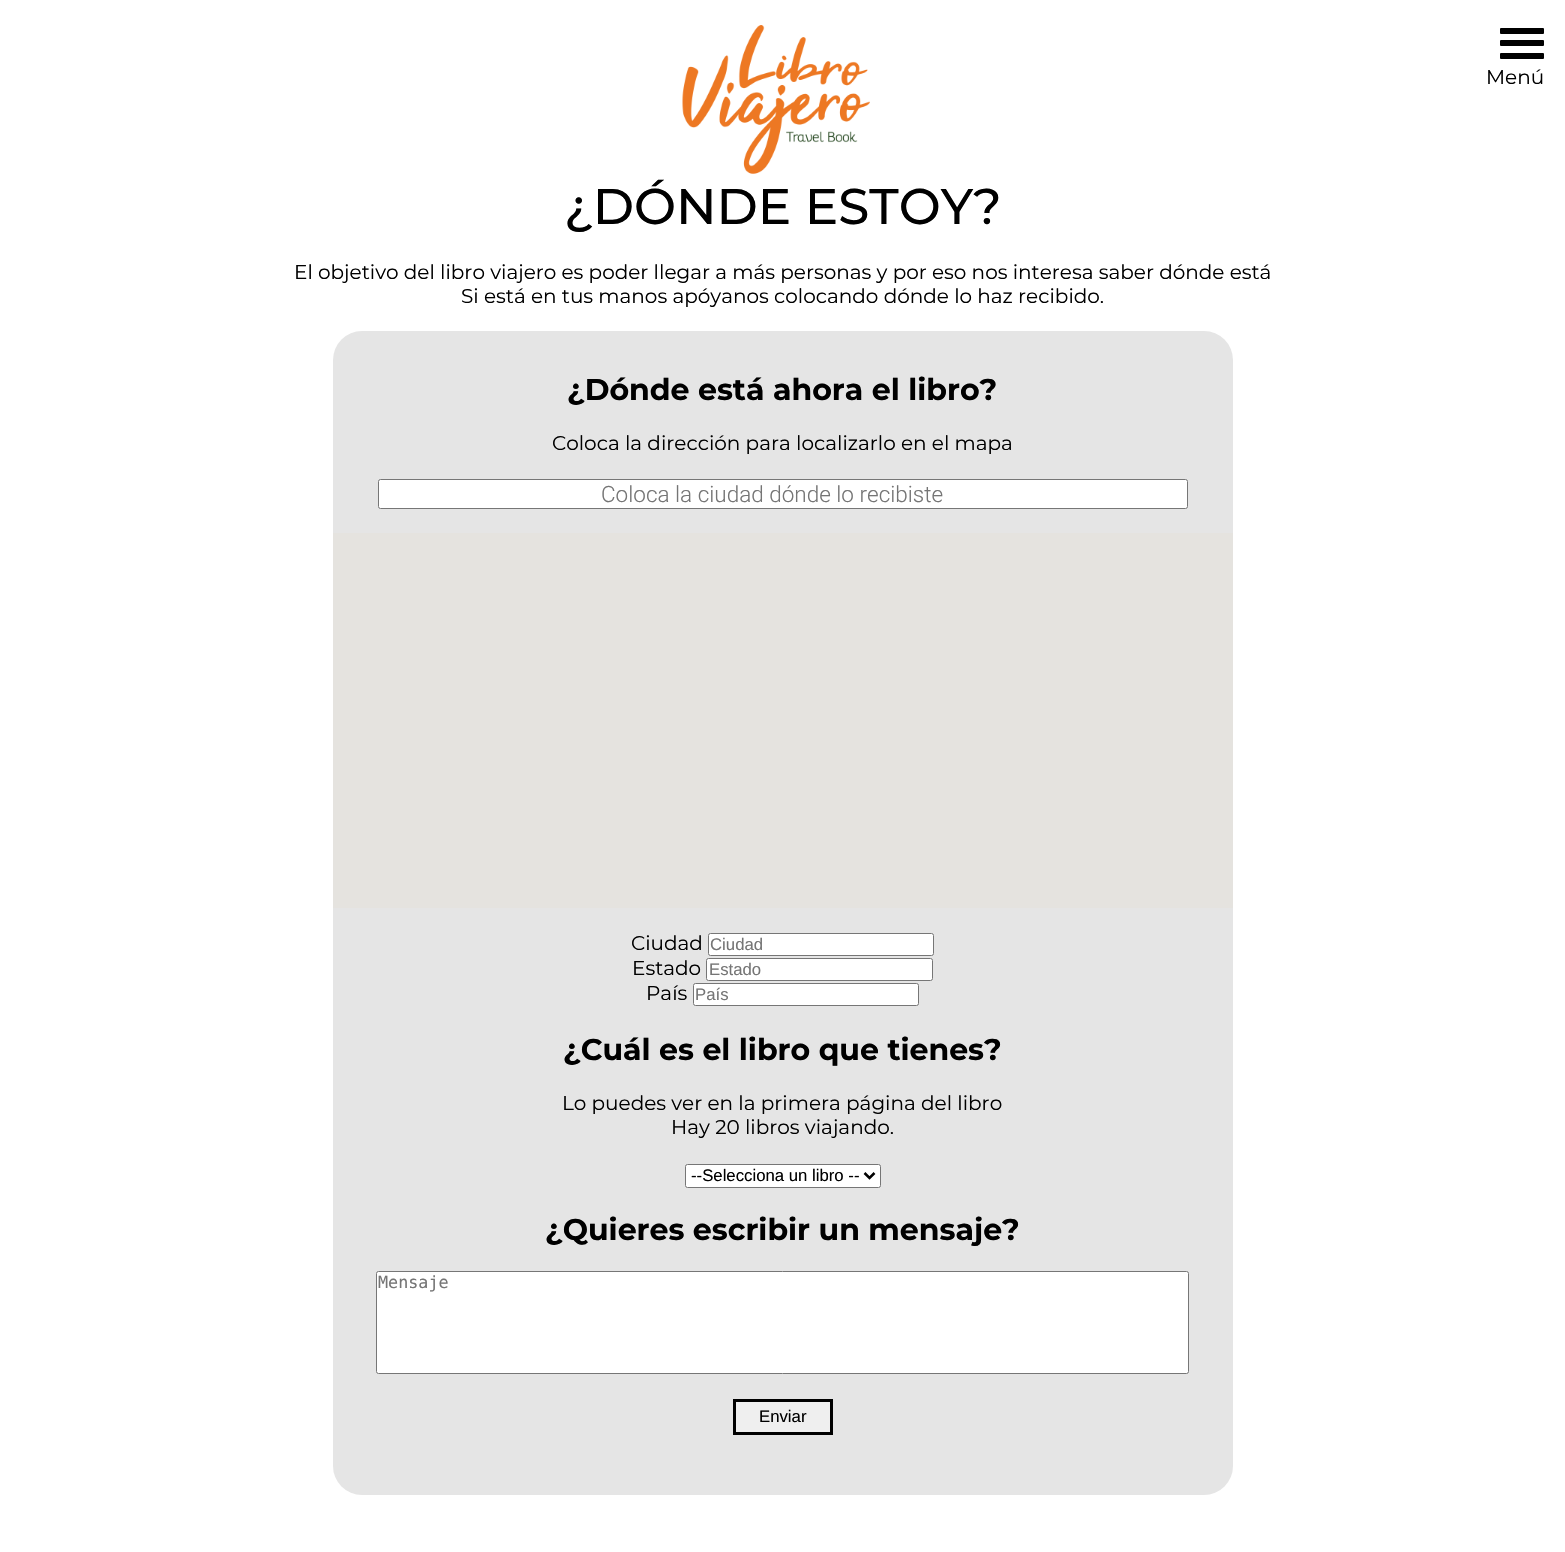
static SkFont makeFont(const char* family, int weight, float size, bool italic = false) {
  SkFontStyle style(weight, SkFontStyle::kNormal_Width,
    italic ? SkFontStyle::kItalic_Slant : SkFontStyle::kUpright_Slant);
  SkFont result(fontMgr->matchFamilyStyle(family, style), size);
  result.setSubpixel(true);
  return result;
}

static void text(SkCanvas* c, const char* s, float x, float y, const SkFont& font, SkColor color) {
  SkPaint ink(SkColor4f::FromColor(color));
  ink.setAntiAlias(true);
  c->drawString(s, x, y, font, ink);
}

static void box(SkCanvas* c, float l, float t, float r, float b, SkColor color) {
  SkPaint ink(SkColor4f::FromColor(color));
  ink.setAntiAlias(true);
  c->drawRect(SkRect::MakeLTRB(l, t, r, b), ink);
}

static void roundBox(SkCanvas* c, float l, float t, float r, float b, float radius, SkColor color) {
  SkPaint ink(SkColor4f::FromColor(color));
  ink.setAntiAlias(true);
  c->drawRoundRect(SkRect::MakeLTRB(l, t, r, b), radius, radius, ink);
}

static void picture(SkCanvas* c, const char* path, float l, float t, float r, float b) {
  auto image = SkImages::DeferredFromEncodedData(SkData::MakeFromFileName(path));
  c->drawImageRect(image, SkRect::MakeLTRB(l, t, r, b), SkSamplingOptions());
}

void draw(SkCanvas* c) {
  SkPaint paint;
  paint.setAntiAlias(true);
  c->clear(0xffffffff);
  picture(c, "img_01.png", 682, 25, 870, 174);
  roundBox(c, 1500, 40, 1544, 46, 1, 0xff000000);
  roundBox(c, 1500, 28, 1544, 34, 1, 0xff000000);
  roundBox(c, 1500, 53, 1544, 59, 1, 0xff000000);
  SkFont face1 = makeFont("Montserrat", 400, 20);
  text(c, "Menú", 1486, 84, face1, 0xff000000);
  SkFont face2 = makeFont("Montserrat", 500, 50);
  text(c, "¿DÓNDE ESTOY?", 564, 224, face2, 0xff000000);
  text(c, "El objetivo del libro viajero es poder llegar a más personas y por eso nos interesa saber dónde está", 294, 279, face1, 0xff000000);
  text(c, "Si está en tus manos apóyanos colocando dónde lo haz recibido.", 461, 303, face1, 0xff000000);
  roundBox(c, 333, 331, 1233, 1495, 29, 0xffe5e5e5);
  SkFont face3 = makeFont("Montserrat", 700, 30);
  text(c, "¿Dónde está ahora el libro?", 567, 400, face3, 0xff000000);
  text(c, "Coloca la dirección para localizarlo en el mapa", 552, 450, face1, 0xff000000);
  paint.setColor(0xffffffff);
  c->drawRoundRect(SkRect::MakeLTRB(378.5f, 479.5f, 1187.5f, 508.5f), 2, 2, paint);
  paint.setStyle(SkPaint::kStroke_Style);
  paint.setStrokeWidth(1);
  paint.setColor(0xff767676);
  c->drawRoundRect(SkRect::MakeLTRB(378.5f, 479.5f, 1187.5f, 508.5f), 2, 2, paint);
  SkFont face4 = makeFont("Roboto", 300, 22.5f);
  text(c, "Coloca la ciudad dónde lo recibiste", 601, 502, face4, 0xff757575);
  box(c, 333, 533, 1233, 908, 0xffe5e3df);
  text(c, "Ciudad", 631, 950, face1, 0xff000000);
  paint.setStyle(SkPaint::kFill_Style);
  paint.setColor(0xffffffff);
  c->drawRoundRect(SkRect::MakeLTRB(708.5f, 933.5f, 933.5f, 955.5f), 2, 2, paint);
  paint.setStyle(SkPaint::kStroke_Style);
  paint.setColor(0xff767676);
  c->drawRoundRect(SkRect::MakeLTRB(708.5f, 933.5f, 933.5f, 955.5f), 2, 2, paint);
  SkFont face5 = makeFont("Liberation Sans", 400, 16.75f);
  text(c, "Ciudad", 710, 950, face5, 0xff757575);
  text(c, "Estado", 632, 975, face1, 0xff000000);
  paint.setStyle(SkPaint::kFill_Style);
  paint.setColor(0xffffffff);
  c->drawRoundRect(SkRect::MakeLTRB(706.5f, 958.5f, 932.5f, 980.5f), 2, 2, paint);
  paint.setStyle(SkPaint::kStroke_Style);
  paint.setColor(0xff767676);
  c->drawRoundRect(SkRect::MakeLTRB(706.5f, 958.5f, 932.5f, 980.5f), 2, 2, paint);
  text(c, "Estado", 709, 975, face5, 0xff757575);
  text(c, "País", 646, 1000, face1, 0xff000000);
  paint.setStyle(SkPaint::kFill_Style);
  paint.setColor(0xffffffff);
  c->drawRoundRect(SkRect::MakeLTRB(693.5f, 983.5f, 918.5f, 1005.5f), 2, 2, paint);
  paint.setStyle(SkPaint::kStroke_Style);
  paint.setColor(0xff767676);
  c->drawRoundRect(SkRect::MakeLTRB(693.5f, 983.5f, 918.5f, 1005.5f), 2, 2, paint);
  text(c, "País", 695, 1000, face5, 0xff757575);
  text(c, "¿Cuál es el libro que tienes?", 563, 1060, face3, 0xff000000);
  text(c, "Lo puedes ver en la primera página del libro", 562, 1110, face1, 0xff000000);
  text(c, "Hay 20 libros viajando.", 671, 1134, face1, 0xff000000);
  paint.setStyle(SkPaint::kFill_Style);
  paint.setColor(0xffffffff);
  c->drawRoundRect(SkRect::MakeLTRB(685.5f, 1164.5f, 880.5f, 1187.5f), 2, 2, paint);
  paint.setStyle(SkPaint::kStroke_Style);
  paint.setColor(0xff767676);
  c->drawRoundRect(SkRect::MakeLTRB(685.5f, 1164.5f, 880.5f, 1187.5f), 2, 2, paint);
  paint.setStrokeWidth(2.5f);
  paint.setColor(0xff000000);
  c->drawPath(SkPathBuilder().moveTo(864.5f, 1173).lineTo(869.5f, 1178).lineTo(874.5f, 1173).detach(), paint);
  text(c, "--Selecciona un libro --", 691, 1181, face5, 0xff000000);
  text(c, "¿Quieres escribir un mensaje?", 545, 1240, face3, 0xff000000);
  paint.setStyle(SkPaint::kFill_Style);
  paint.setColor(0xffffffff);
  c->drawRoundRect(SkRect::MakeLTRB(376.5f, 1271.5f, 1188.5f, 1373.5f), 2, 2, paint);
  paint.setStyle(SkPaint::kStroke_Style);
  paint.setStrokeWidth(1);
  paint.setColor(0xff767676);
  c->drawRoundRect(SkRect::MakeLTRB(376.5f, 1271.5f, 1188.5f, 1373.5f), 2, 2, paint);
  SkFont face6 = makeFont("DejaVu Sans Mono", 400, 16.75f);
  text(c, "Mensaje", 378, 1288, face6, 0xff757575);
  paint.setStyle(SkPaint::kFill_Style);
  paint.setColor(0xffefefef);
  c->drawRect(SkRect::MakeLTRB(734.5f, 1400.5f, 831.5f, 1433.5f), paint);
  paint.setStyle(SkPaint::kStroke_Style);
  paint.setStrokeWidth(3);
  paint.setColor(0xff000000);
  c->drawRect(SkRect::MakeLTRB(734.5f, 1400.5f, 831.5f, 1433.5f), paint);
  text(c, "Enviar", 759, 1422, face5, 0xff000000);
}
